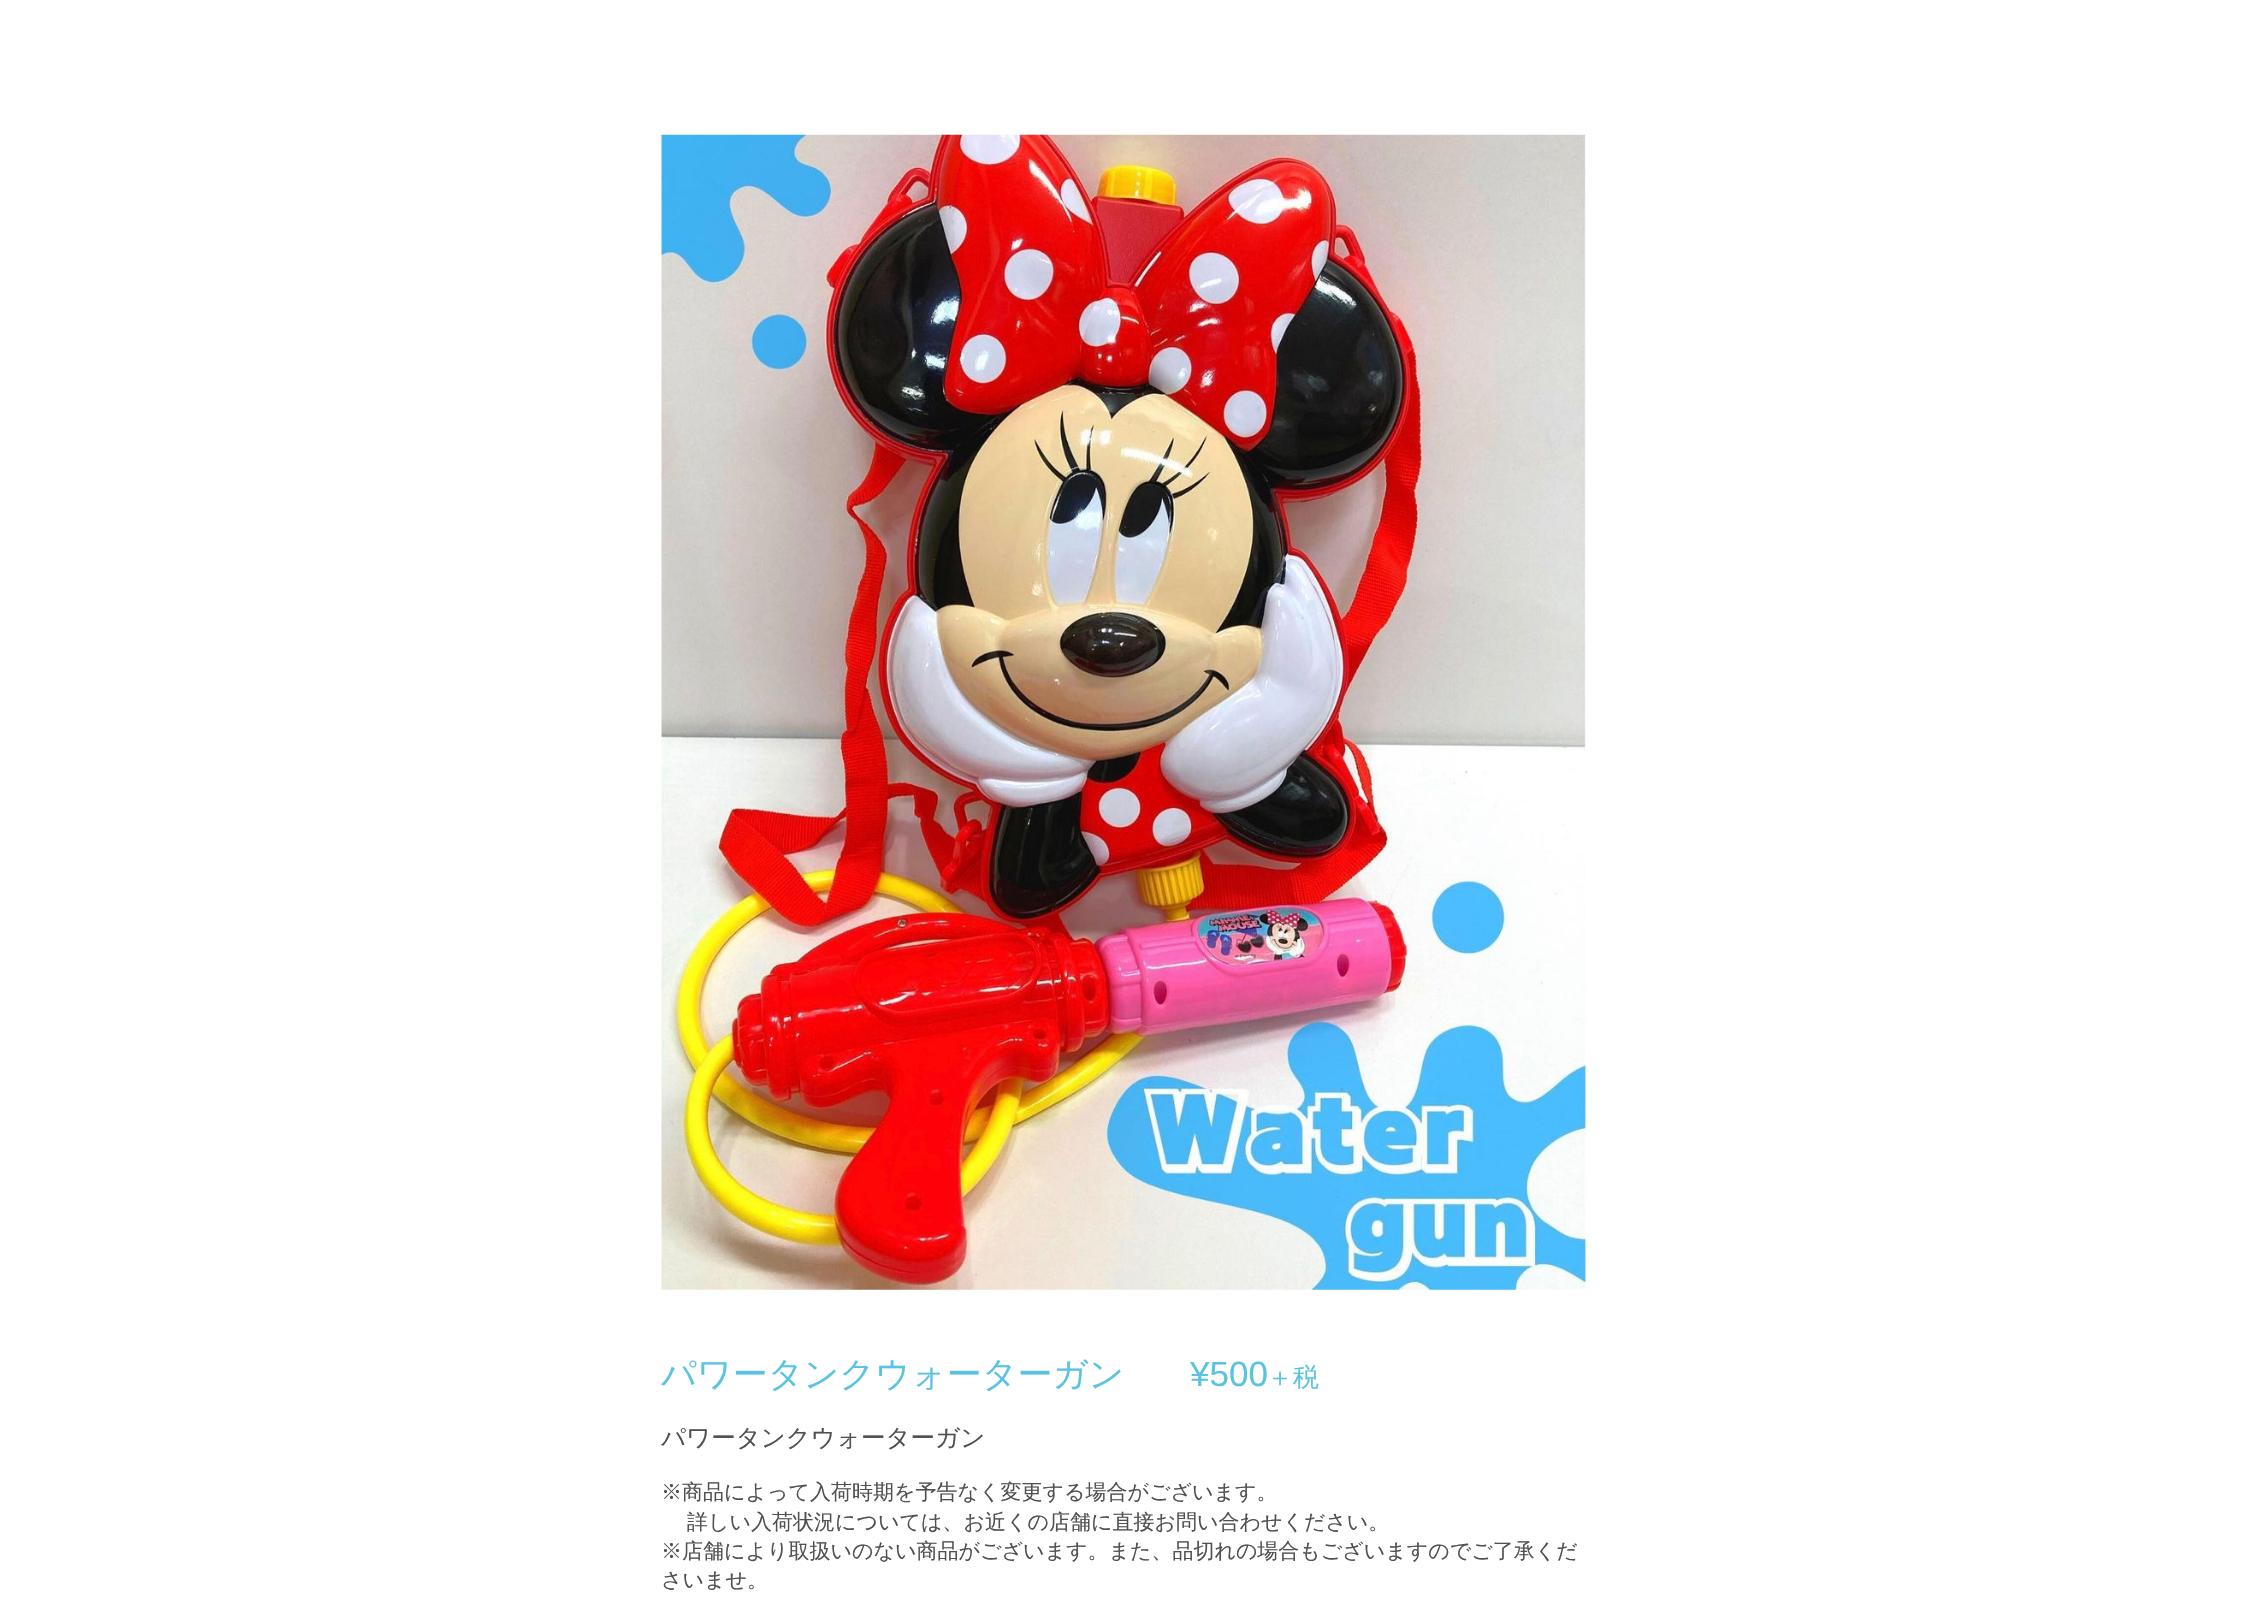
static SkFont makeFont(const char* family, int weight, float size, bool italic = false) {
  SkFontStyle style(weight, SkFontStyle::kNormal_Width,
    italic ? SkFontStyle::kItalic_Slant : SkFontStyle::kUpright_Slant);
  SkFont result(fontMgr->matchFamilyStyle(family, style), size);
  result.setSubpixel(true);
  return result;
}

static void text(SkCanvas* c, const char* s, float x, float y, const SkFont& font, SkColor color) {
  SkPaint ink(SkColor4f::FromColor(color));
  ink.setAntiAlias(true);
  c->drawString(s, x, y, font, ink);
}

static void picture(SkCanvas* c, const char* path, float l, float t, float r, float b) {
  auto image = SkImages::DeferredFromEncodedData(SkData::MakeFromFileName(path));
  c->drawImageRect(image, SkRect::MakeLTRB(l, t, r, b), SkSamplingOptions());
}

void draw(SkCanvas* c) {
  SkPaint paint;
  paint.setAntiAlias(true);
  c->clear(0xffffffff);
  picture(c, "img_01.png", 661, 134, 1586, 1290);
  SkFont face1 = makeFont("WenQuanYi Zen Hei", 500, 35);
  text(c, "パワータンクウォーターガン", 661, 1386, face1, 0xff5ac3e1);
  SkFont face2 = makeFont("Liberation Sans", 400, 35);
  text(c, "¥500", 1190, 1386, face2, 0xff5ac3e1);
  SkFont face3 = makeFont("WenQuanYi Zen Hei", 500, 26);
  text(c, "＋税", 1267, 1386, face3, 0xff5ac3e1);
  SkFont face4 = makeFont("WenQuanYi Zen Hei", 500, 24.5f);
  text(c, "パワータンクウォーターガン", 661, 1446, face4, 0xff505050);
  SkFont face5 = makeFont("WenQuanYi Zen Hei", 500, 21);
  text(c, "※商品によって入荷時期を予告なく変更する場合がございます。", 661, 1499, face5, 0xff505050);
  text(c, "詳しい入荷状況については、お近くの店舗に直接お問い合わせください。", 687, 1529, face5, 0xff505050);
  text(c, "※店舗により取扱いのない商品がございます。また、品切れの場合もございますのでご了承くだ", 661, 1558, face5, 0xff505050);
  text(c, "さいませ。", 661, 1587, face5, 0xff505050);
}
